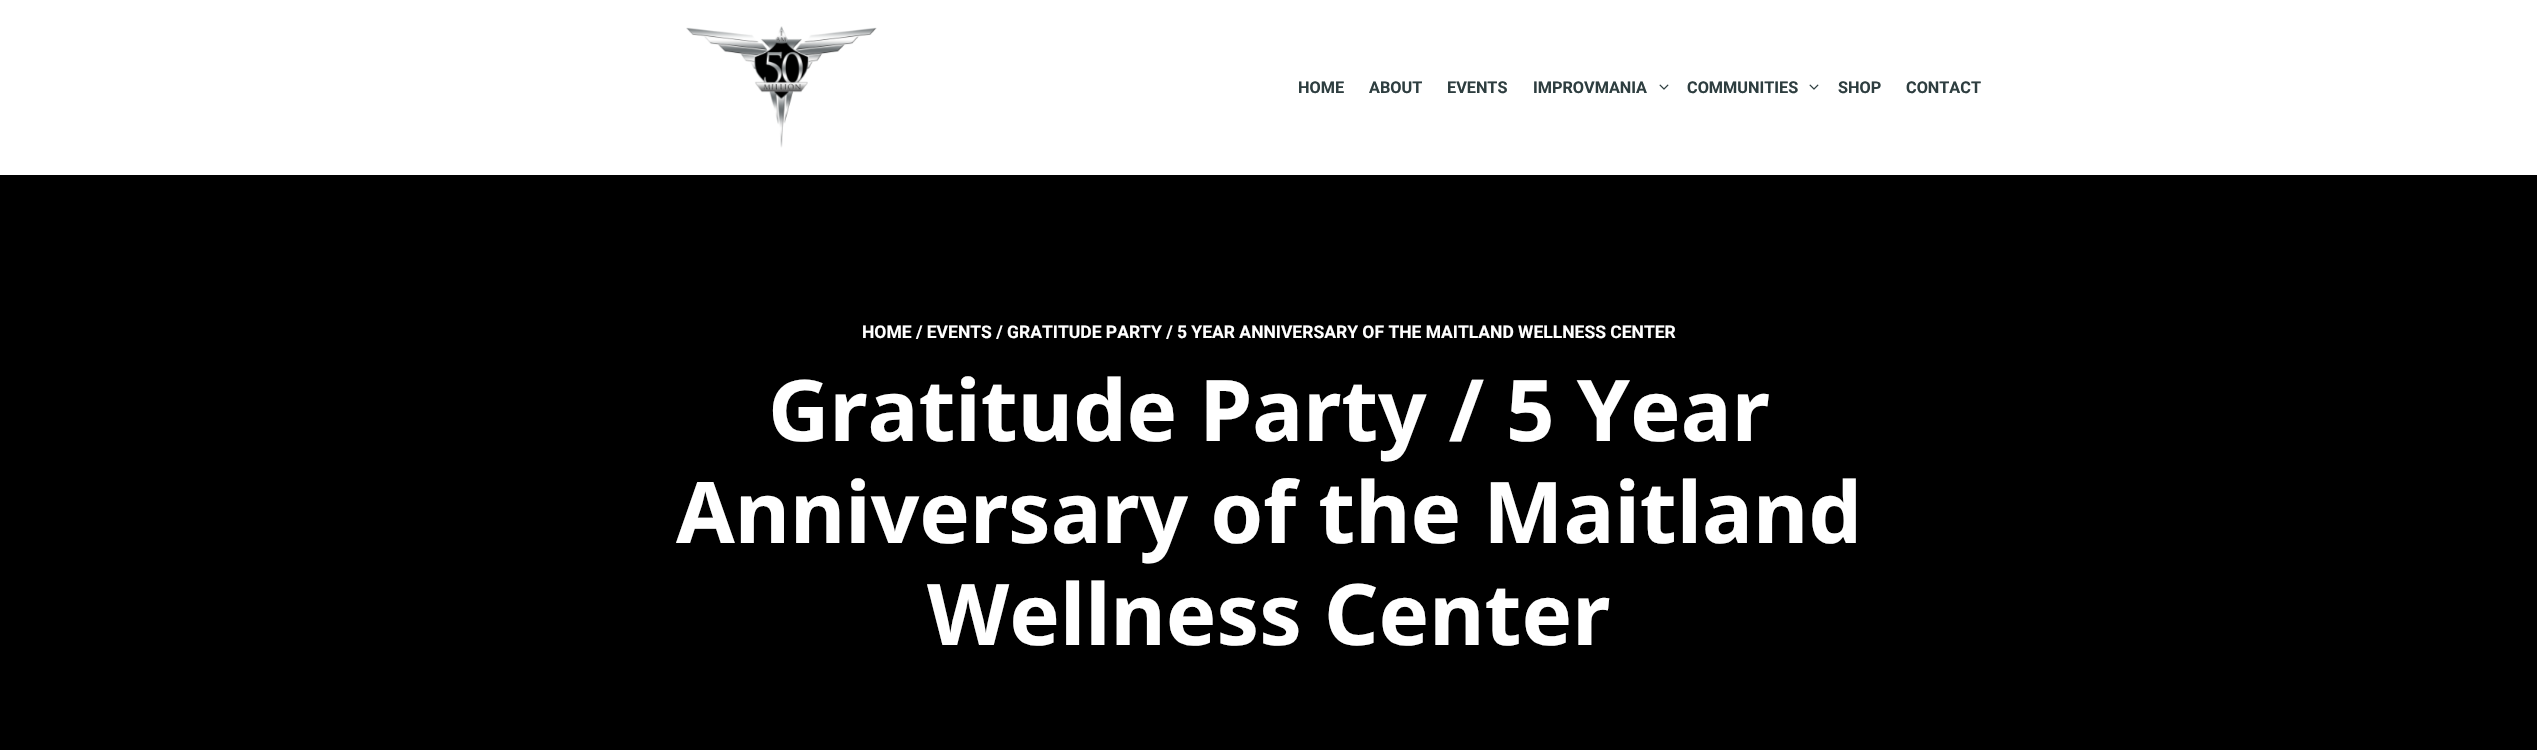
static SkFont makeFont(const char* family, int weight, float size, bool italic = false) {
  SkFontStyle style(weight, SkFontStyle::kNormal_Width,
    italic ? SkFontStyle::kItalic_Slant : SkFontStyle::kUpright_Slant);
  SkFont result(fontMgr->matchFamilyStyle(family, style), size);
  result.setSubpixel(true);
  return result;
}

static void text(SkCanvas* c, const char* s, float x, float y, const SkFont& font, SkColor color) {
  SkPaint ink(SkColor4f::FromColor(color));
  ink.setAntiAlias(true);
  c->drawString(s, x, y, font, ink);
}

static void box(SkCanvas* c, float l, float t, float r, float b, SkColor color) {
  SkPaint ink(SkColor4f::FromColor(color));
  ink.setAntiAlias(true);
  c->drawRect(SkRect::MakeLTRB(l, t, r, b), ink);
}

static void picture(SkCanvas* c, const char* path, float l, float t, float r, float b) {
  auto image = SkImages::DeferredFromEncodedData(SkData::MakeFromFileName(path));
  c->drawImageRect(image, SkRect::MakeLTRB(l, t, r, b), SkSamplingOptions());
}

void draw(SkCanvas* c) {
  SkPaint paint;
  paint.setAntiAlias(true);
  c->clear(0xffffffff);
  picture(c, "img_01.png", 686, 26, 877, 148);
  SkFont face1 = makeFont("Roboto", 700, 16.25f);
  text(c, "HOME", 1298, 93, face1, 0xff2e3e40);
  text(c, "ABOUT", 1369, 93, face1, 0xff2e3e40);
  text(c, "EVENTS", 1447, 93, face1, 0xff2e3e40);
  text(c, "IMPROVMANIA", 1533, 93, face1, 0xff2e3e40);
  picture(c, "img_02.png", 1659, 84, 1669, 90);
  text(c, "COMMUNITIES", 1687, 93, face1, 0xff2e3e40);
  picture(c, "img_02.png", 1809, 84, 1819, 90);
  text(c, "SHOP", 1838, 93, face1, 0xff2e3e40);
  text(c, "CONTACT", 1906, 93, face1, 0xff2e3e40);
  box(c, 0, 175, 2537, 750, 0xff000000);
  SkFont face2 = makeFont("Roboto", 700, 17.5f);
  text(c, "HOME / EVENTS / GRATITUDE PARTY / 5 YEAR ANNIVERSARY OF THE MAITLAND WELLNESS CENTER", 862, 338, face2, 0xffffffff);
  SkFont face3 = makeFont("Noto Sans", 700, 85);
  text(c, "Gratitude Party / 5 Year", 768, 441, face3, 0xffffffff);
  text(c, "Anniversary of the Maitland", 676, 543, face3, 0xffffffff);
  text(c, "Wellness Center", 927, 645, face3, 0xffffffff);
}
